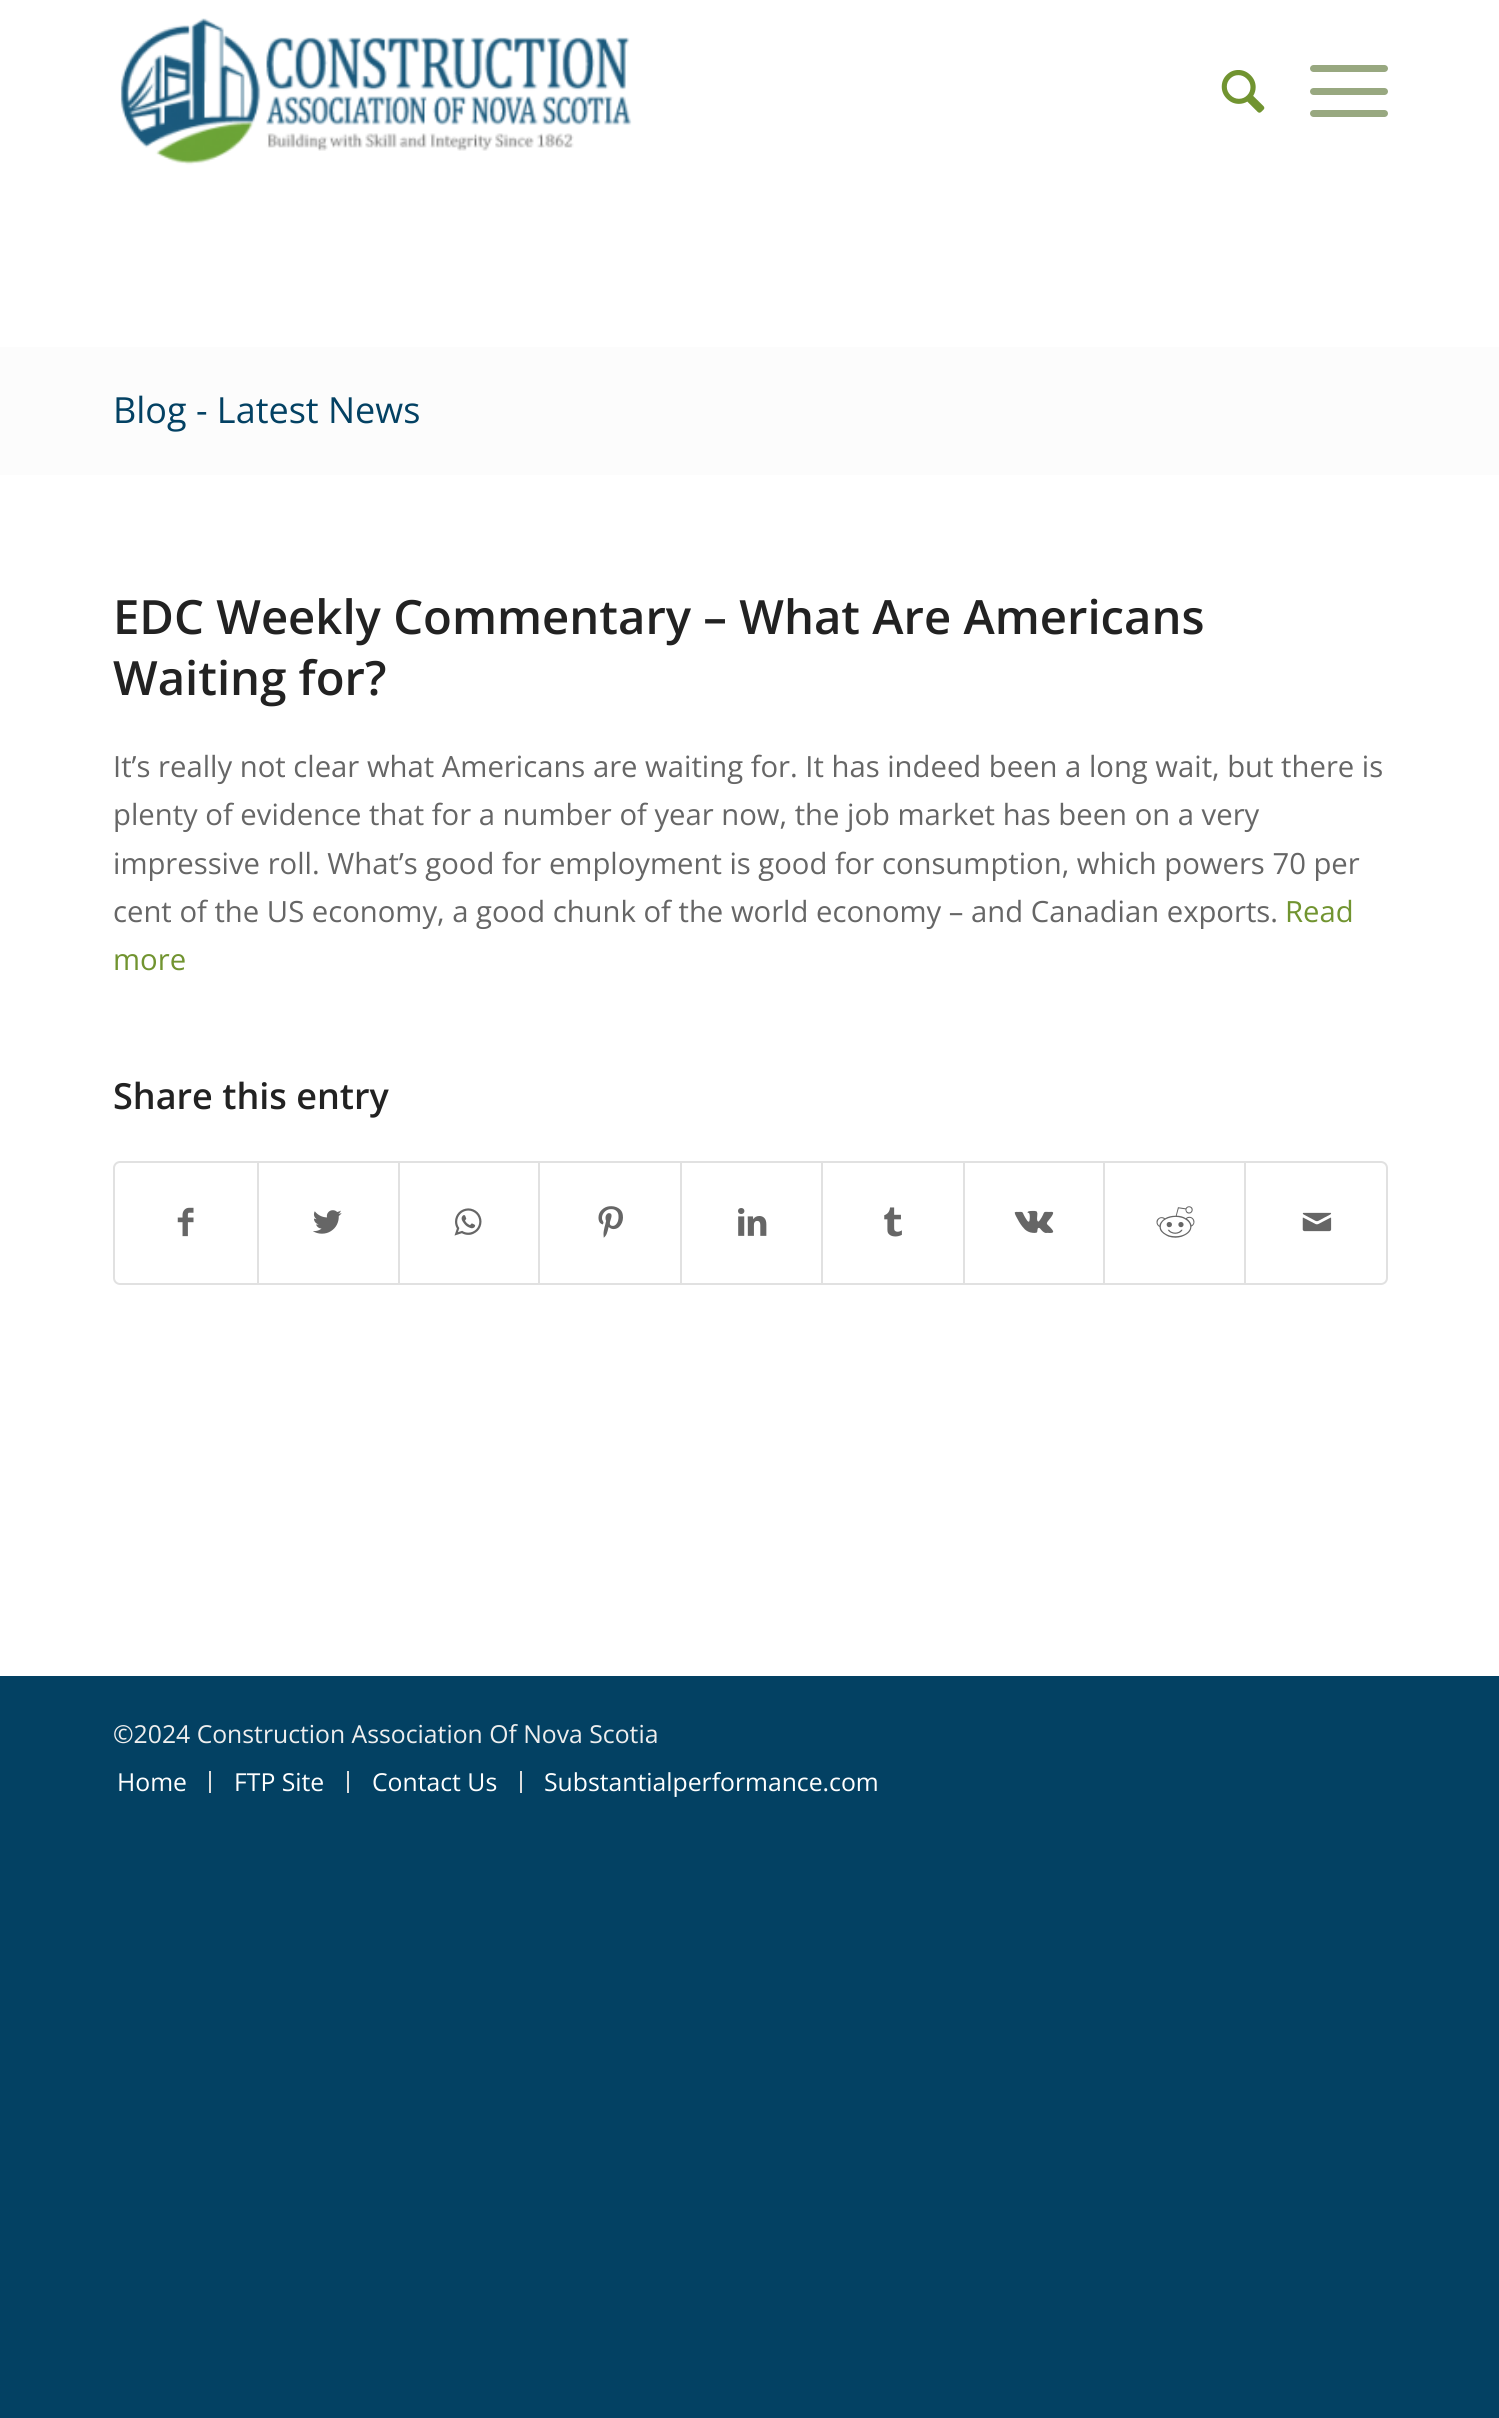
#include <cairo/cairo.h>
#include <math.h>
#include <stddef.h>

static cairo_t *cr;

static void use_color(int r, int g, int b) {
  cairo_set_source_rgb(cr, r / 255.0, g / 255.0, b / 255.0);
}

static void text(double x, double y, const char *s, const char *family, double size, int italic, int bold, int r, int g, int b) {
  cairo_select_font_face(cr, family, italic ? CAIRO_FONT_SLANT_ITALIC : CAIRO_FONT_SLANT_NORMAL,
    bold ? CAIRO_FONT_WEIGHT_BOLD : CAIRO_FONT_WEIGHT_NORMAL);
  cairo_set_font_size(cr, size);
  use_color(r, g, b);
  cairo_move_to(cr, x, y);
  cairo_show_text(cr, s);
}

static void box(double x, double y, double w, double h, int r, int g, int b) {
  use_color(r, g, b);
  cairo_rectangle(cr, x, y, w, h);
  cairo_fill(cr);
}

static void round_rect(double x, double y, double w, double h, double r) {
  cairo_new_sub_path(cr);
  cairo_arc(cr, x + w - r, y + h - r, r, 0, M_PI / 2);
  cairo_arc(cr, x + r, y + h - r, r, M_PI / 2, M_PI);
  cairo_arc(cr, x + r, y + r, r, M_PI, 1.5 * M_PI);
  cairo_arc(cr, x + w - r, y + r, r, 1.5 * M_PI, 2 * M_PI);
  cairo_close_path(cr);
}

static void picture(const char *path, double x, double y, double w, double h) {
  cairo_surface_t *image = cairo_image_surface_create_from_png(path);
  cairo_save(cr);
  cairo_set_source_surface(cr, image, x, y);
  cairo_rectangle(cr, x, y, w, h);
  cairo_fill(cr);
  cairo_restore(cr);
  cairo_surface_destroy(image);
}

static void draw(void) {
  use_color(3, 65, 99);
  cairo_paint(cr);
  box(0, 0, 1499, 1676, 255, 255, 255);
  picture("img_01.png", 120, 18, 512, 147);
  picture("img_02.png", 1221, 70, 44, 43);
  use_color(152, 168, 128);
  round_rect(1310, 88, 78, 7, 3.5);
  cairo_fill(cr);
  round_rect(1310, 65, 78, 7, 3.5);
  cairo_fill(cr);
  round_rect(1310, 110, 78, 7, 3.5);
  cairo_fill(cr);
  box(0, 347, 1499, 128, 252, 252, 252);
  round_rect(114, 1162, 1273, 122, 6);
  use_color(225, 225, 225);
  cairo_stroke(cr);
  picture("img_03.png", 177, 1207, 17, 30);
  box(257, 1163, 2, 120, 225, 225, 225);
  picture("img_04.png", 313, 1210, 29, 24);
  box(398, 1163, 2, 120, 225, 225, 225);
  picture("img_05.png", 454, 1208, 28, 28);
  box(538, 1163, 2, 120, 225, 225, 225);
  picture("img_06.png", 598, 1206, 25, 32);
  box(680, 1163, 2, 120, 225, 225, 225);
  picture("img_07.png", 738, 1208, 29, 28);
  box(821, 1163, 2, 120, 225, 225, 225);
  picture("img_08.png", 884, 1207, 18, 30);
  box(963, 1163, 2, 120, 225, 225, 225);
  picture("img_09.png", 1014, 1210, 40, 23);
  box(1103, 1163, 2, 120, 225, 225, 225);
  picture("img_10.png", 1156, 1206, 39, 32);
  box(1244, 1163, 2, 120, 225, 225, 225);
  picture("img_11.png", 1302, 1212, 30, 20);
  box(209, 1771, 2, 22, 221, 221, 221);
  box(347, 1771, 2, 22, 221, 221, 221);
  box(520, 1771, 2, 22, 221, 221, 221);
  text(113, 423, "Blog - Latest News", "Open Sans", 36, 0, 0, 3, 65, 99);
  text(113, 634, "EDC Weekly Commentary – What Are Americans", "Open Sans SemiBold", 47.25, 0, 0, 34, 34, 34);
  text(113, 695, "Waiting for?", "Open Sans SemiBold", 47.25, 0, 0, 34, 34, 34);
  text(113, 777, "It’s really not clear what Americans are waiting for. It has indeed been a long wait, but there is", "Open Sans", 29.25, 0, 0, 102, 102, 102);
  text(113, 825, "plenty of evidence that for a number of year now, the job market has been on a very", "Open Sans", 29.25, 0, 0, 102, 102, 102);
  text(113, 874, "impressive roll. What’s good for employment is good for consumption, which powers 70 per", "Open Sans", 29.25, 0, 0, 102, 102, 102);
  text(113, 922, "cent of the US economy, a good chunk of the world economy – and Canadian exports.", "Open Sans", 29.25, 0, 0, 102, 102, 102);
  text(1285, 922, "Read", "Open Sans", 29.25, 0, 0, 113, 148, 48);
  text(113, 970, "more", "Open Sans", 29.25, 0, 0, 113, 148, 48);
  text(113, 1109, "Share this entry", "Open Sans SemiBold", 36, 0, 0, 34, 34, 34);
  text(113, 1743, "©2024 Construction Association Of Nova Scotia", "Open Sans", 24.75, 0, 0, 238, 238, 238);
  text(117, 1791, "Home", "Open Sans", 24.75, 0, 0, 255, 255, 255);
  text(234, 1791, "FTP Site", "Open Sans", 24.75, 0, 0, 255, 255, 255);
  text(372, 1791, "Contact Us", "Open Sans", 24.75, 0, 0, 255, 255, 255);
  text(544, 1791, "Substantialperformance.com", "Open Sans", 24.75, 0, 0, 255, 255, 255);
}

int main(void) {
  cairo_surface_t *surface = cairo_image_surface_create(CAIRO_FORMAT_RGB24, 1499, 2418);
  cr = cairo_create(surface);
  cairo_font_options_t *options = cairo_font_options_create();
  cairo_font_options_set_hint_metrics(options, CAIRO_HINT_METRICS_OFF);
  cairo_font_options_set_hint_style(options, CAIRO_HINT_STYLE_NONE);
  cairo_set_font_options(cr, options);
  cairo_set_miter_limit(cr, 4);
  draw();
  cairo_surface_write_to_png(surface, "out.png");
  cairo_font_options_destroy(options);
  cairo_destroy(cr);
  cairo_surface_destroy(surface);
  return 0;
}
